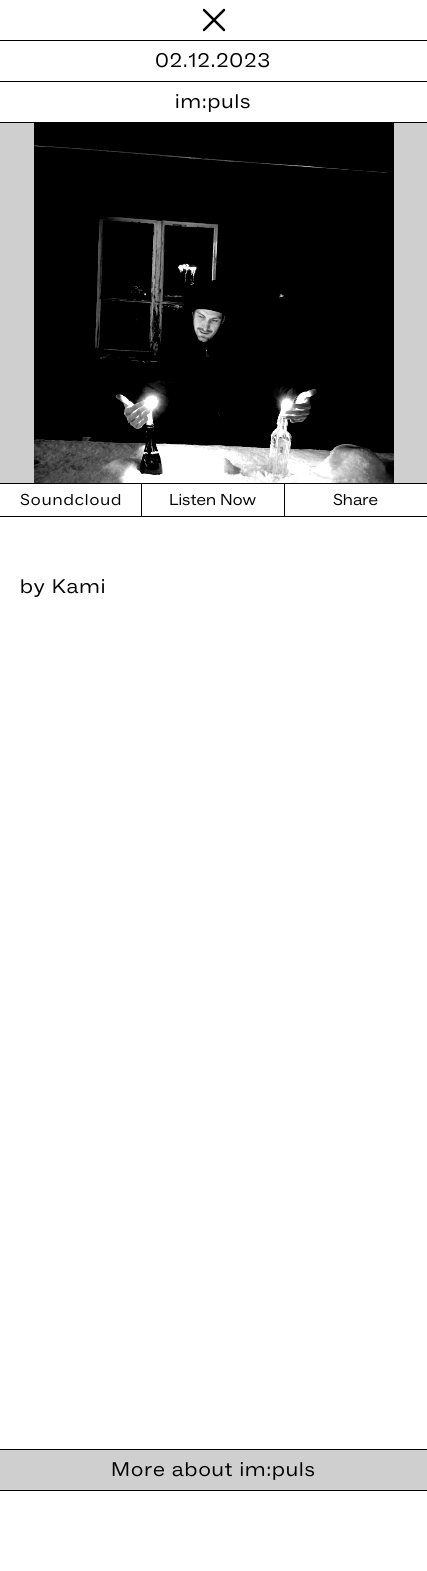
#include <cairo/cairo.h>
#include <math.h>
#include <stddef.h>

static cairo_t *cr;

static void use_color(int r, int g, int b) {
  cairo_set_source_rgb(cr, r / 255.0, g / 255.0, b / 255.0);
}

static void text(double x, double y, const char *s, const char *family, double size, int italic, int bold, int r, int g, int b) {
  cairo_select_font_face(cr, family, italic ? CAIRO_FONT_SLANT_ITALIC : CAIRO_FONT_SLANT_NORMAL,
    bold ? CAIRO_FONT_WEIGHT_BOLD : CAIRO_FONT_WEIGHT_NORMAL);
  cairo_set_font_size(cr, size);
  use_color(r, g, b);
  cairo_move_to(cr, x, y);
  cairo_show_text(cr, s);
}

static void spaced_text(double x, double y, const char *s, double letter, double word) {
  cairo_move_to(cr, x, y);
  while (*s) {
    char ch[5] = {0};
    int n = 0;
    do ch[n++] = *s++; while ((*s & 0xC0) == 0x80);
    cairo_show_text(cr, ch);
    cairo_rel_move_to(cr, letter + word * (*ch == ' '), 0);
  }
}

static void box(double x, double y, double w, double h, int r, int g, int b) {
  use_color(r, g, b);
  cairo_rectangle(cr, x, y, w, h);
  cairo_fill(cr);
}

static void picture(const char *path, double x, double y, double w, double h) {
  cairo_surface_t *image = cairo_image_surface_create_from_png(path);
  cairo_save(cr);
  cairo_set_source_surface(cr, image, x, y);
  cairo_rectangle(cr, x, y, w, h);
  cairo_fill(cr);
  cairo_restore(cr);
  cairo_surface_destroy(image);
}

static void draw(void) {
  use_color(255, 255, 255);
  cairo_paint(cr);
  cairo_new_path(cr);
  cairo_move_to(cr, 204, 30);
  cairo_line_to(cr, 224, 10);
  cairo_move_to(cr, 204, 10);
  cairo_line_to(cr, 224, 30);
  use_color(0, 0, 0);
  cairo_set_line_width(cr, 2.5);
  cairo_set_line_cap(cr, CAIRO_LINE_CAP_ROUND);
  cairo_set_line_join(cr, CAIRO_LINE_JOIN_ROUND);
  cairo_stroke(cr);
  box(0, 40, 427, 1, 0, 0, 0);
  box(0, 81, 427, 1, 0, 0, 0);
  box(0, 122, 427, 1, 0, 0, 0);
  box(0, 123, 427, 360, 207, 207, 207);
  box(0, 483, 427, 1, 0, 0, 0);
  picture("img_01.png", 34, 123, 360, 360);
  box(0, 516, 427, 1, 0, 0, 0);
  box(141, 484, 1, 32, 0, 0, 0);
  box(284, 484, 1, 32, 0, 0, 0);
  box(0, 1450, 427, 40, 207, 207, 207);
  box(0, 1449, 427, 1, 0, 0, 0);
  box(0, 1490, 427, 1, 0, 0, 0);
  cairo_select_font_face(cr, "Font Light", CAIRO_FONT_SLANT_NORMAL, CAIRO_FONT_WEIGHT_NORMAL);
  cairo_set_font_size(cr, 20);
  spaced_text(155, 67, "02.12.2023", 1, 0);
  spaced_text(175, 108, "im:puls", 1, 0);
  cairo_set_font_size(cr, 16);
  spaced_text(20, 505, "Soundcloud", 1, 0);
  text(169, 505, "Listen Now", "Font Light", 16, 0, 0, 0, 0, 0);
  text(333, 505, "Share", "Font Light", 16, 0, 0, 0, 0, 0);
  cairo_set_font_size(cr, 20);
  spaced_text(20, 593, "by Kami", 1, 0);
  spaced_text(111, 1476, "More about im:puls", 1, 0);
}

int main(void) {
  cairo_surface_t *surface = cairo_image_surface_create(CAIRO_FORMAT_RGB24, 427, 1571);
  cr = cairo_create(surface);
  cairo_font_options_t *options = cairo_font_options_create();
  cairo_font_options_set_hint_metrics(options, CAIRO_HINT_METRICS_OFF);
  cairo_font_options_set_hint_style(options, CAIRO_HINT_STYLE_NONE);
  cairo_set_font_options(cr, options);
  cairo_set_miter_limit(cr, 4);
  draw();
  cairo_surface_write_to_png(surface, "out.png");
  cairo_font_options_destroy(options);
  cairo_destroy(cr);
  cairo_surface_destroy(surface);
  return 0;
}
